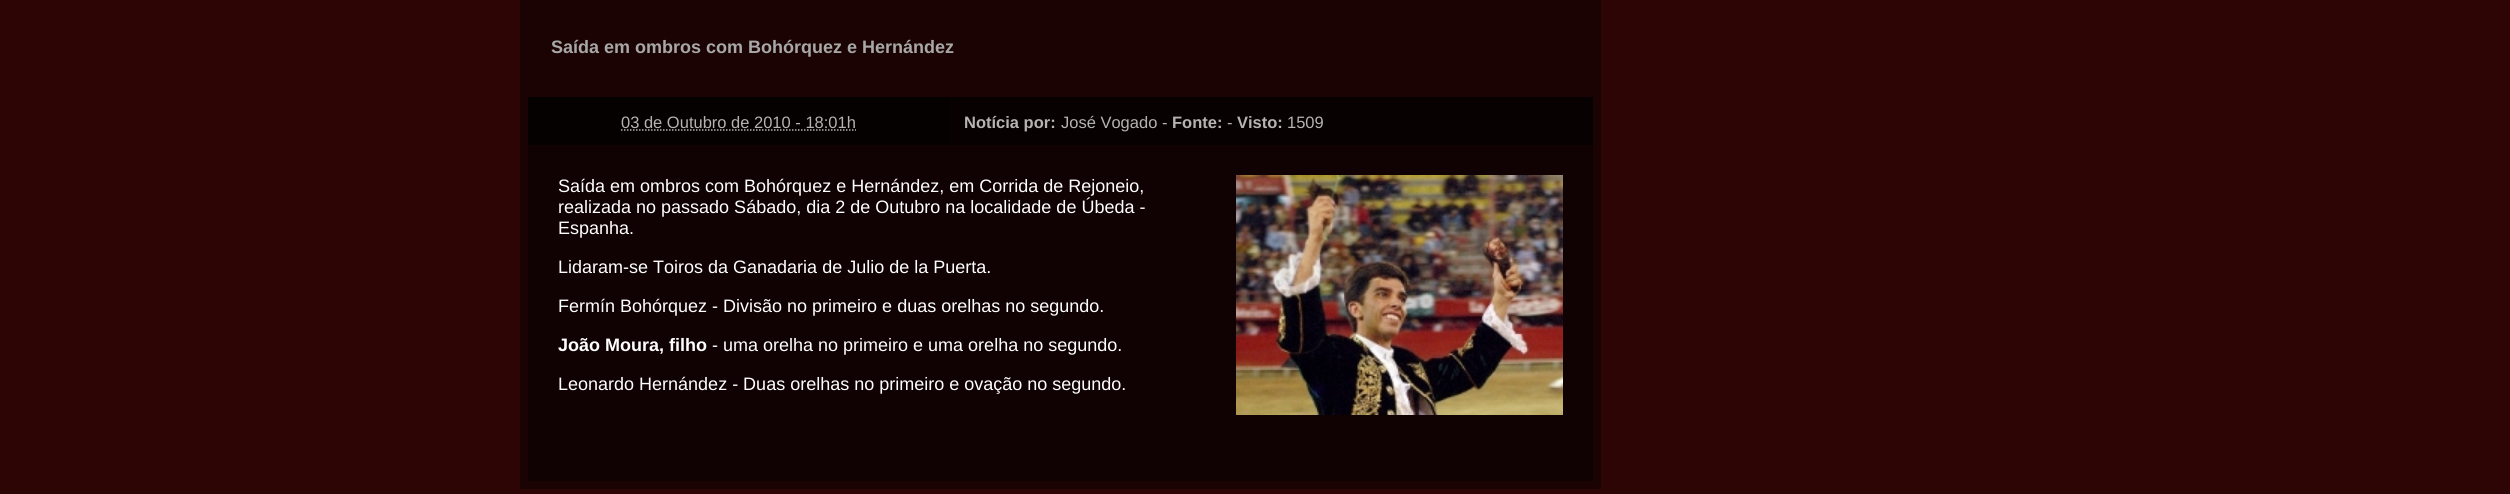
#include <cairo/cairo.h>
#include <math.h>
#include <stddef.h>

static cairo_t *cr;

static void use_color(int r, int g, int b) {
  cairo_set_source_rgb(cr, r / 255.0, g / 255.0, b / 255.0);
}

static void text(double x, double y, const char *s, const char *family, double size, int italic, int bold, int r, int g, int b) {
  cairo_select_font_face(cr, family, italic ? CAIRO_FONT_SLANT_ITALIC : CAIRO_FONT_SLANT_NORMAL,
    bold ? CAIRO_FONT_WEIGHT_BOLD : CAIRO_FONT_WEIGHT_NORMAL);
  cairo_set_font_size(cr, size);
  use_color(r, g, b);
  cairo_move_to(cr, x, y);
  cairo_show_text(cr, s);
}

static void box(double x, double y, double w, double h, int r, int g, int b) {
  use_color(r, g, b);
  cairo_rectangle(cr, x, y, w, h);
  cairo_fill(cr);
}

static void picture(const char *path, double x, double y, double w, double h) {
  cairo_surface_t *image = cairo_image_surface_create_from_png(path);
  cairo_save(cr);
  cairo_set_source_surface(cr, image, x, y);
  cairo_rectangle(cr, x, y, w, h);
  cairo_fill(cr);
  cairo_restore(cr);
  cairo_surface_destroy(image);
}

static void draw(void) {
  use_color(45, 5, 5);
  cairo_paint(cr);
  box(520, 0, 1081, 489, 27, 3, 3);
  box(528, 97, 422, 48, 5, 1, 1);
  cairo_new_path(cr);
  cairo_move_to(cr, 621, 130);
  cairo_line_to(cr, 856, 130);
  use_color(181, 180, 178);
  cairo_set_line_width(cr, 1.5);
  cairo_set_dash(cr, (double[]){1.5, 1.5}, 2, 0);
  cairo_stroke(cr);
  box(950, 97, 643, 48, 8, 1, 1);
  box(528, 145, 1065, 336, 16, 2, 2);
  picture("img_01.png", 1236, 175, 327, 240);
  text(551, 53, "Saída em ombros com Bohórquez e Hernández", "Liberation Sans", 18, 0, 1, 168, 168, 168);
  text(621, 128, "03 de Outubro de 2010 - 18:01h", "Liberation Sans", 16.5, 0, 0, 181, 180, 178);
  text(964, 128, "Notícia por:", "Liberation Sans", 16.5, 0, 1, 181, 180, 178);
  text(1061, 128, "José Vogado -", "Liberation Sans", 16.5, 0, 0, 181, 180, 178);
  text(1172, 128, "Fonte:", "Liberation Sans", 16.5, 0, 1, 181, 180, 178);
  text(1227, 128, "-", "Liberation Sans", 16.5, 0, 0, 181, 180, 178);
  text(1237, 128, "Visto:", "Liberation Sans", 16.5, 0, 1, 181, 180, 178);
  text(1287, 128, "1509", "Liberation Sans", 16.5, 0, 0, 181, 180, 178);
  text(558, 192, "Saída em ombros com Bohórquez e Hernández, em Corrida de Rejoneio,", "Liberation Sans", 18, 0, 0, 255, 255, 255);
  text(558, 213, "realizada no passado Sábado, dia 2 de Outubro na localidade de Úbeda -", "Liberation Sans", 18, 0, 0, 255, 255, 255);
  text(558, 234, "Espanha.", "Liberation Sans", 18, 0, 0, 255, 255, 255);
  text(558, 273, "Lidaram-se Toiros da Ganadaria de Julio de la Puerta.", "Liberation Sans", 18, 0, 0, 255, 255, 255);
  text(558, 312, "Fermín Bohórquez - Divisão no primeiro e duas orelhas no segundo.", "Liberation Sans", 18, 0, 0, 255, 255, 255);
  text(558, 351, "João Moura, filho", "Liberation Sans", 18, 0, 1, 255, 255, 255);
  text(712, 351, "- uma orelha no primeiro e uma orelha no segundo.", "Liberation Sans", 18, 0, 0, 255, 255, 255);
  text(558, 390, "Leonardo Hernández - Duas orelhas no primeiro e ovação no segundo.", "Liberation Sans", 18, 0, 0, 255, 255, 255);
}

int main(void) {
  cairo_surface_t *surface = cairo_image_surface_create(CAIRO_FORMAT_RGB24, 2510, 494);
  cr = cairo_create(surface);
  cairo_font_options_t *options = cairo_font_options_create();
  cairo_font_options_set_hint_metrics(options, CAIRO_HINT_METRICS_OFF);
  cairo_font_options_set_hint_style(options, CAIRO_HINT_STYLE_NONE);
  cairo_set_font_options(cr, options);
  cairo_set_miter_limit(cr, 4);
  draw();
  cairo_surface_write_to_png(surface, "out.png");
  cairo_font_options_destroy(options);
  cairo_destroy(cr);
  cairo_surface_destroy(surface);
  return 0;
}
